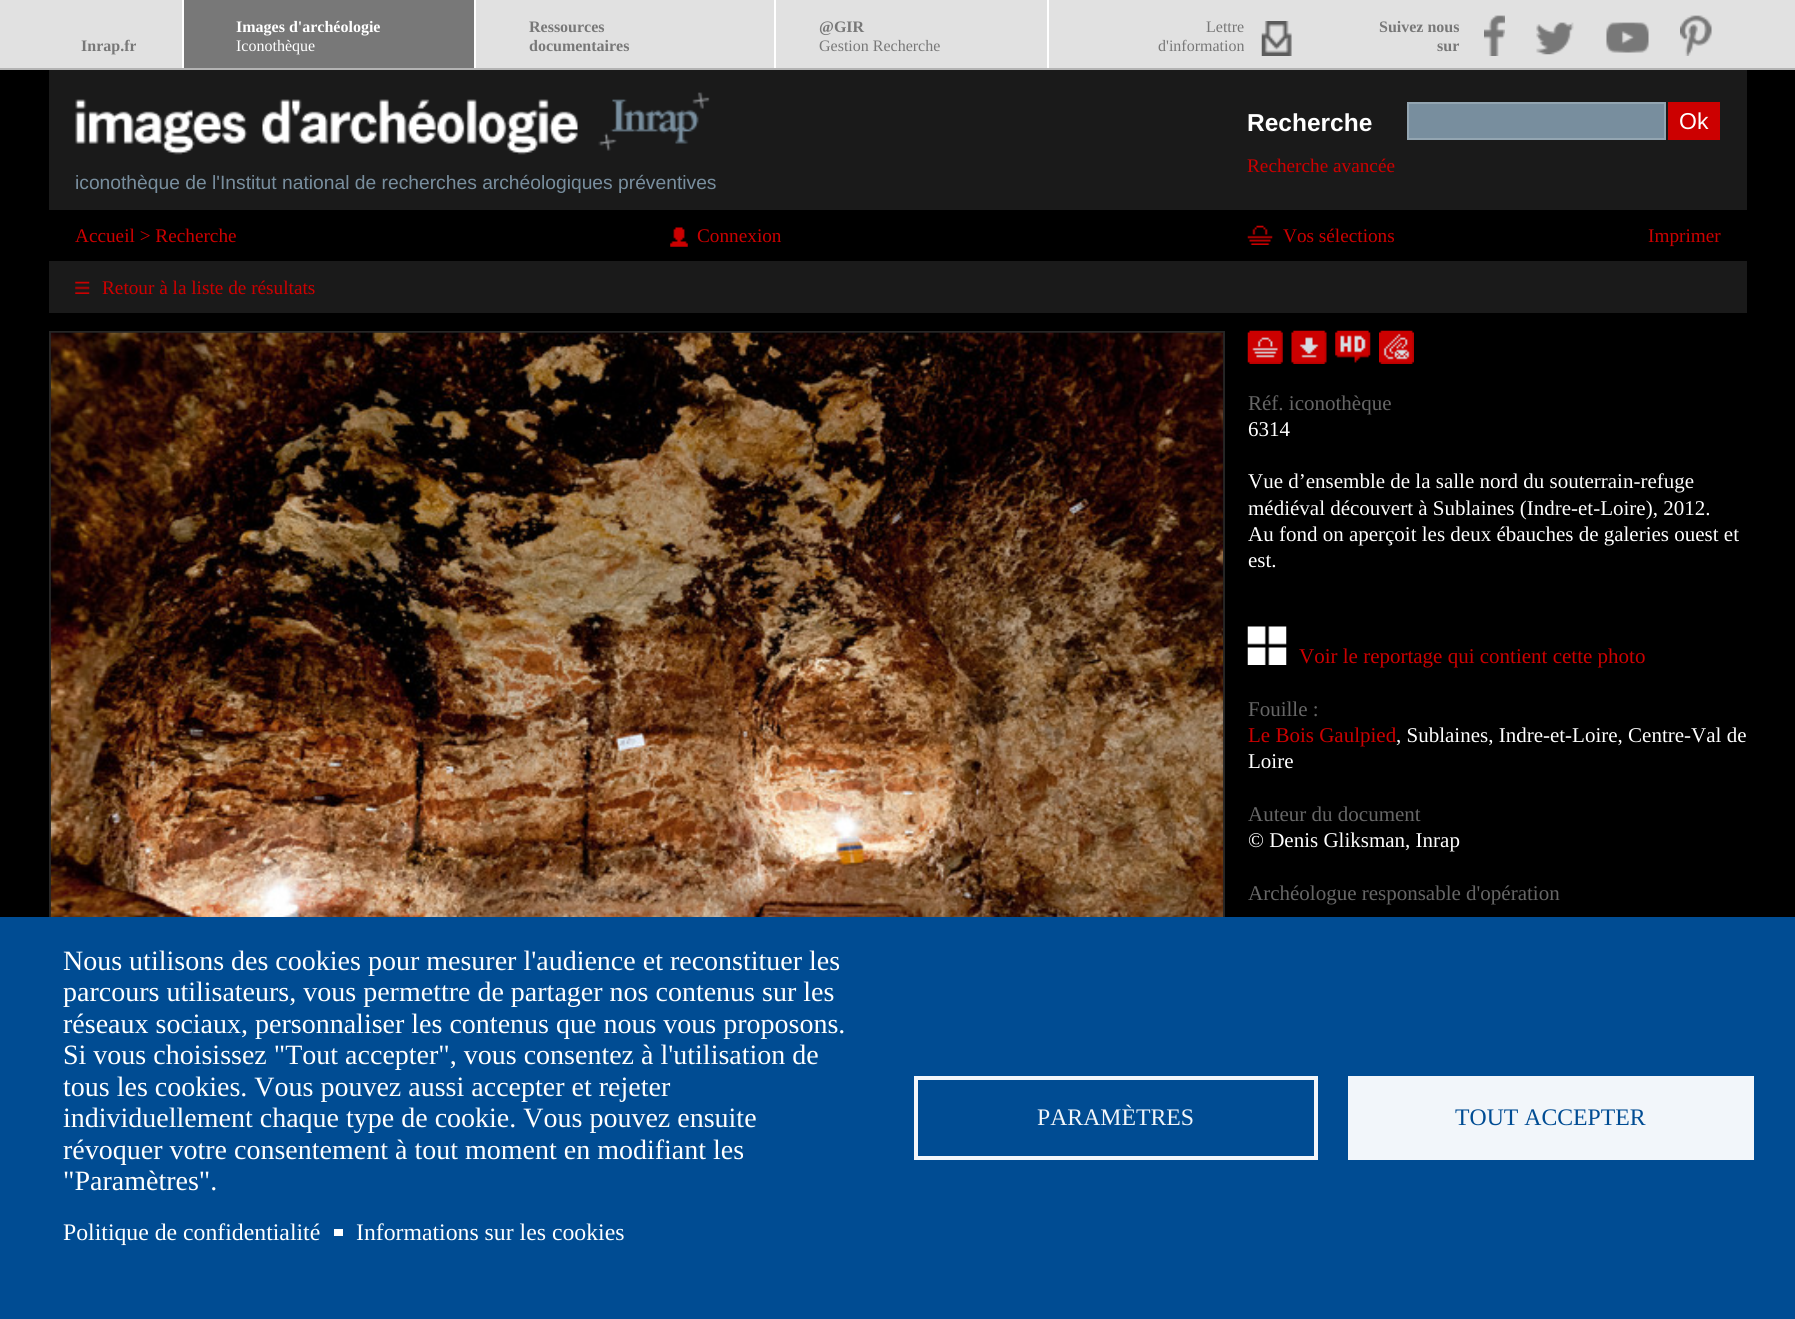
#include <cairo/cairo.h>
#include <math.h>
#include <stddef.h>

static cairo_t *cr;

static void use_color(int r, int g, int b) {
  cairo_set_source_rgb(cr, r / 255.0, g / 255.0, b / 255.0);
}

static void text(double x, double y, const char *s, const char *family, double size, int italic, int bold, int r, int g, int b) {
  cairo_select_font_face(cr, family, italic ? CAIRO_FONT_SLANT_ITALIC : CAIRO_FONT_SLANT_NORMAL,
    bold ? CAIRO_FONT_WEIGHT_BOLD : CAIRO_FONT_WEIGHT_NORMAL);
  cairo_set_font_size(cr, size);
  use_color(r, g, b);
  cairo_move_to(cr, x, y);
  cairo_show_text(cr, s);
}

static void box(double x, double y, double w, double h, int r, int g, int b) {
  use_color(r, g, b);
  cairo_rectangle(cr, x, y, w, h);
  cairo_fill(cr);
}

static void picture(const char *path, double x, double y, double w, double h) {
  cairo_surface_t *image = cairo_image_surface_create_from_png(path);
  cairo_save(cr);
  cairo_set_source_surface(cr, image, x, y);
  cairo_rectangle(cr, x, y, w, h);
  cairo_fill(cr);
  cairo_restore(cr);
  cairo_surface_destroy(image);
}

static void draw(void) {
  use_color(0, 0, 0);
  cairo_paint(cr);
  box(0, 0, 1795, 68, 225, 225, 225);
  box(0, 68, 1795, 2, 179, 179, 179);
  box(182, 0, 2, 68, 255, 255, 255);
  box(184, 0, 290, 68, 120, 120, 120);
  box(474, 0, 2, 68, 255, 255, 255);
  box(774, 0, 2, 68, 255, 255, 255);
  box(1047, 0, 2, 68, 255, 255, 255);
  picture("img_01.png", 1261, 21, 31, 35);
  picture("img_02.png", 1484, 15, 21, 41);
  picture("img_03.png", 1536, 22, 38, 33);
  picture("img_04.png", 1606, 22, 43, 31);
  picture("img_05.png", 1680, 15, 32, 41);
  box(49, 70, 1698, 140, 26, 26, 26);
  use_color(120, 142, 158);
  cairo_rectangle(cr, 1408, 103, 257, 36);
  cairo_fill_preserve(cr);
  use_color(147, 165, 177);
  cairo_stroke(cr);
  box(1668, 102, 52, 38, 204, 0, 0);
  picture("img_06.png", 75, 92, 635, 63);
  picture("img_07.png", 670, 227, 18, 20);
  picture("img_08.png", 1247, 225, 26, 20);
  box(49, 261, 1698, 52, 26, 26, 26);
  picture("img_09.png", 75, 281, 15, 13);
  cairo_rectangle(cr, 50, 332, 1174, 782);
  use_color(38, 38, 38);
  cairo_stroke(cr);
  picture("img_10.png", 50, 332, 1174, 585);
  picture("img_11.png", 1247, 330, 36, 34);
  picture("img_12.png", 1291, 330, 36, 34);
  picture("img_13.png", 1335, 330, 36, 33);
  picture("img_14.png", 1379, 330, 35, 34);
  picture("img_15.png", 1247, 626, 40, 39);
  box(0, 917, 1795, 402, 0, 76, 147);
  box(334, 1229, 9, 7, 255, 255, 255);
  cairo_rectangle(cr, 916, 1078, 400, 80);
  use_color(242, 246, 250);
  cairo_set_line_width(cr, 4);
  cairo_stroke(cr);
  box(1348, 1076, 406, 84, 242, 246, 250);
  text(81, 51, "Inrap.fr", "Liberation Serif", 16, 0, 1, 120, 120, 120);
  text(236, 32, "Images d'archéologie", "Liberation Serif", 16, 0, 1, 255, 255, 255);
  text(236, 51, "Iconothèque", "Liberation Serif", 16, 0, 0, 255, 255, 255);
  text(529, 32, "Ressources", "Liberation Serif", 16, 0, 1, 120, 120, 120);
  text(529, 51, "documentaires", "Liberation Serif", 16, 0, 1, 120, 120, 120);
  text(819, 32, "@GIR", "Liberation Serif", 16, 0, 1, 120, 120, 120);
  text(819, 51, "Gestion Recherche", "Liberation Serif", 16, 0, 0, 120, 120, 120);
  text(1206, 32, "Lettre", "Liberation Serif", 16, 0, 0, 120, 120, 120);
  text(1158, 51, "d'information", "Liberation Serif", 16, 0, 0, 120, 120, 120);
  text(1379, 32, "Suivez nous", "Liberation Serif", 16, 0, 1, 120, 120, 120);
  text(1437, 51, "sur", "Liberation Serif", 16, 0, 1, 120, 120, 120);
  text(1247, 131, "Recherche", "Liberation Sans", 24.5, 0, 1, 255, 255, 255);
  text(1679, 129, "Ok", "Liberation Sans", 23, 0, 0, 255, 255, 255);
  text(1247, 172, "Recherche avancée", "Liberation Serif", 19.25, 0, 0, 204, 0, 0);
  text(75, 189, "iconothèque de l'Institut national de recherches archéologiques préventives", "Liberation Sans", 19.25, 0, 0, 120, 142, 158);
  text(75, 242, "Accueil > Recherche", "Liberation Serif", 19.25, 0, 0, 204, 0, 0);
  text(697, 242, "Connexion", "Liberation Serif", 19.25, 0, 0, 204, 0, 0);
  text(1283, 242, "Vos sélections", "Liberation Serif", 19.25, 0, 0, 204, 0, 0);
  text(1648, 242, "Imprimer", "Liberation Serif", 19.25, 0, 0, 204, 0, 0);
  text(102, 294, "Retour à la liste de résultats", "Liberation Serif", 19.25, 0, 0, 204, 0, 0);
  text(1248, 410, "Réf. iconothèque", "Liberation Serif", 21, 0, 0, 102, 102, 102);
  text(1248, 436, "6314", "Liberation Serif", 21, 0, 0, 255, 255, 255);
  text(1248, 488, "Vue d’ensemble de la salle nord du souterrain-refuge", "Liberation Serif", 21, 0, 0, 255, 255, 255);
  text(1248, 515, "médiéval découvert à Sublaines (Indre-et-Loire), 2012.", "Liberation Serif", 21, 0, 0, 255, 255, 255);
  text(1248, 541, "Au fond on aperçoit les deux ébauches de galeries ouest et", "Liberation Serif", 21, 0, 0, 255, 255, 255);
  text(1248, 567, "est.", "Liberation Serif", 21, 0, 0, 255, 255, 255);
  text(1299, 663, "Voir le reportage qui contient cette photo", "Liberation Serif", 21, 0, 0, 204, 0, 0);
  text(1248, 716, "Fouille :", "Liberation Serif", 21, 0, 0, 102, 102, 102);
  text(1248, 742, "Le Bois Gaulpied", "Liberation Serif", 21, 0, 0, 204, 0, 0);
  text(1396, 742, ", Sublaines, Indre-et-Loire, Centre-Val de", "Liberation Serif", 21, 0, 0, 255, 255, 255);
  text(1248, 768, "Loire", "Liberation Serif", 21, 0, 0, 255, 255, 255);
  text(1248, 821, "Auteur du document", "Liberation Serif", 21, 0, 0, 102, 102, 102);
  text(1248, 847, "© Denis Gliksman, Inrap", "Liberation Serif", 21, 0, 0, 255, 255, 255);
  text(1248, 900, "Archéologue responsable d'opération", "Liberation Serif", 21, 0, 0, 102, 102, 102);
  text(63, 970, "Nous utilisons des cookies pour mesurer l'audience et reconstituer les", "Liberation Serif", 28, 0, 0, 255, 255, 255);
  text(63, 1001, "parcours utilisateurs, vous permettre de partager nos contenus sur les", "Liberation Serif", 28, 0, 0, 255, 255, 255);
  text(63, 1033, "réseaux sociaux, personnaliser les contenus que nous vous proposons.", "Liberation Serif", 28, 0, 0, 255, 255, 255);
  text(63, 1064, "Si vous choisissez \"Tout accepter\", vous consentez à l'utilisation de", "Liberation Serif", 28, 0, 0, 255, 255, 255);
  text(63, 1096, "tous les cookies. Vous pouvez aussi accepter et rejeter", "Liberation Serif", 28, 0, 0, 255, 255, 255);
  text(63, 1127, "individuellement chaque type de cookie. Vous pouvez ensuite", "Liberation Serif", 28, 0, 0, 255, 255, 255);
  text(63, 1159, "révoquer votre consentement à tout moment en modifiant les", "Liberation Serif", 28, 0, 0, 255, 255, 255);
  text(63, 1190, "\"Paramètres\".", "Liberation Serif", 28, 0, 0, 255, 255, 255);
  text(63, 1240, "Politique de confidentialité", "Liberation Serif", 23.75, 0, 0, 255, 255, 255);
  text(356, 1240, "Informations sur les cookies", "Liberation Serif", 23.75, 0, 0, 255, 255, 255);
  text(1037, 1125, "PARAMÈTRES", "Liberation Serif", 23.75, 0, 0, 242, 246, 250);
  text(1455, 1125, "TOUT ACCEPTER", "Liberation Serif", 23.75, 0, 0, 0, 76, 147);
}

int main(void) {
  cairo_surface_t *surface = cairo_image_surface_create(CAIRO_FORMAT_RGB24, 1795, 1319);
  cr = cairo_create(surface);
  cairo_font_options_t *options = cairo_font_options_create();
  cairo_font_options_set_hint_metrics(options, CAIRO_HINT_METRICS_OFF);
  cairo_font_options_set_hint_style(options, CAIRO_HINT_STYLE_NONE);
  cairo_set_font_options(cr, options);
  cairo_set_miter_limit(cr, 4);
  draw();
  cairo_surface_write_to_png(surface, "out.png");
  cairo_font_options_destroy(options);
  cairo_destroy(cr);
  cairo_surface_destroy(surface);
  return 0;
}
